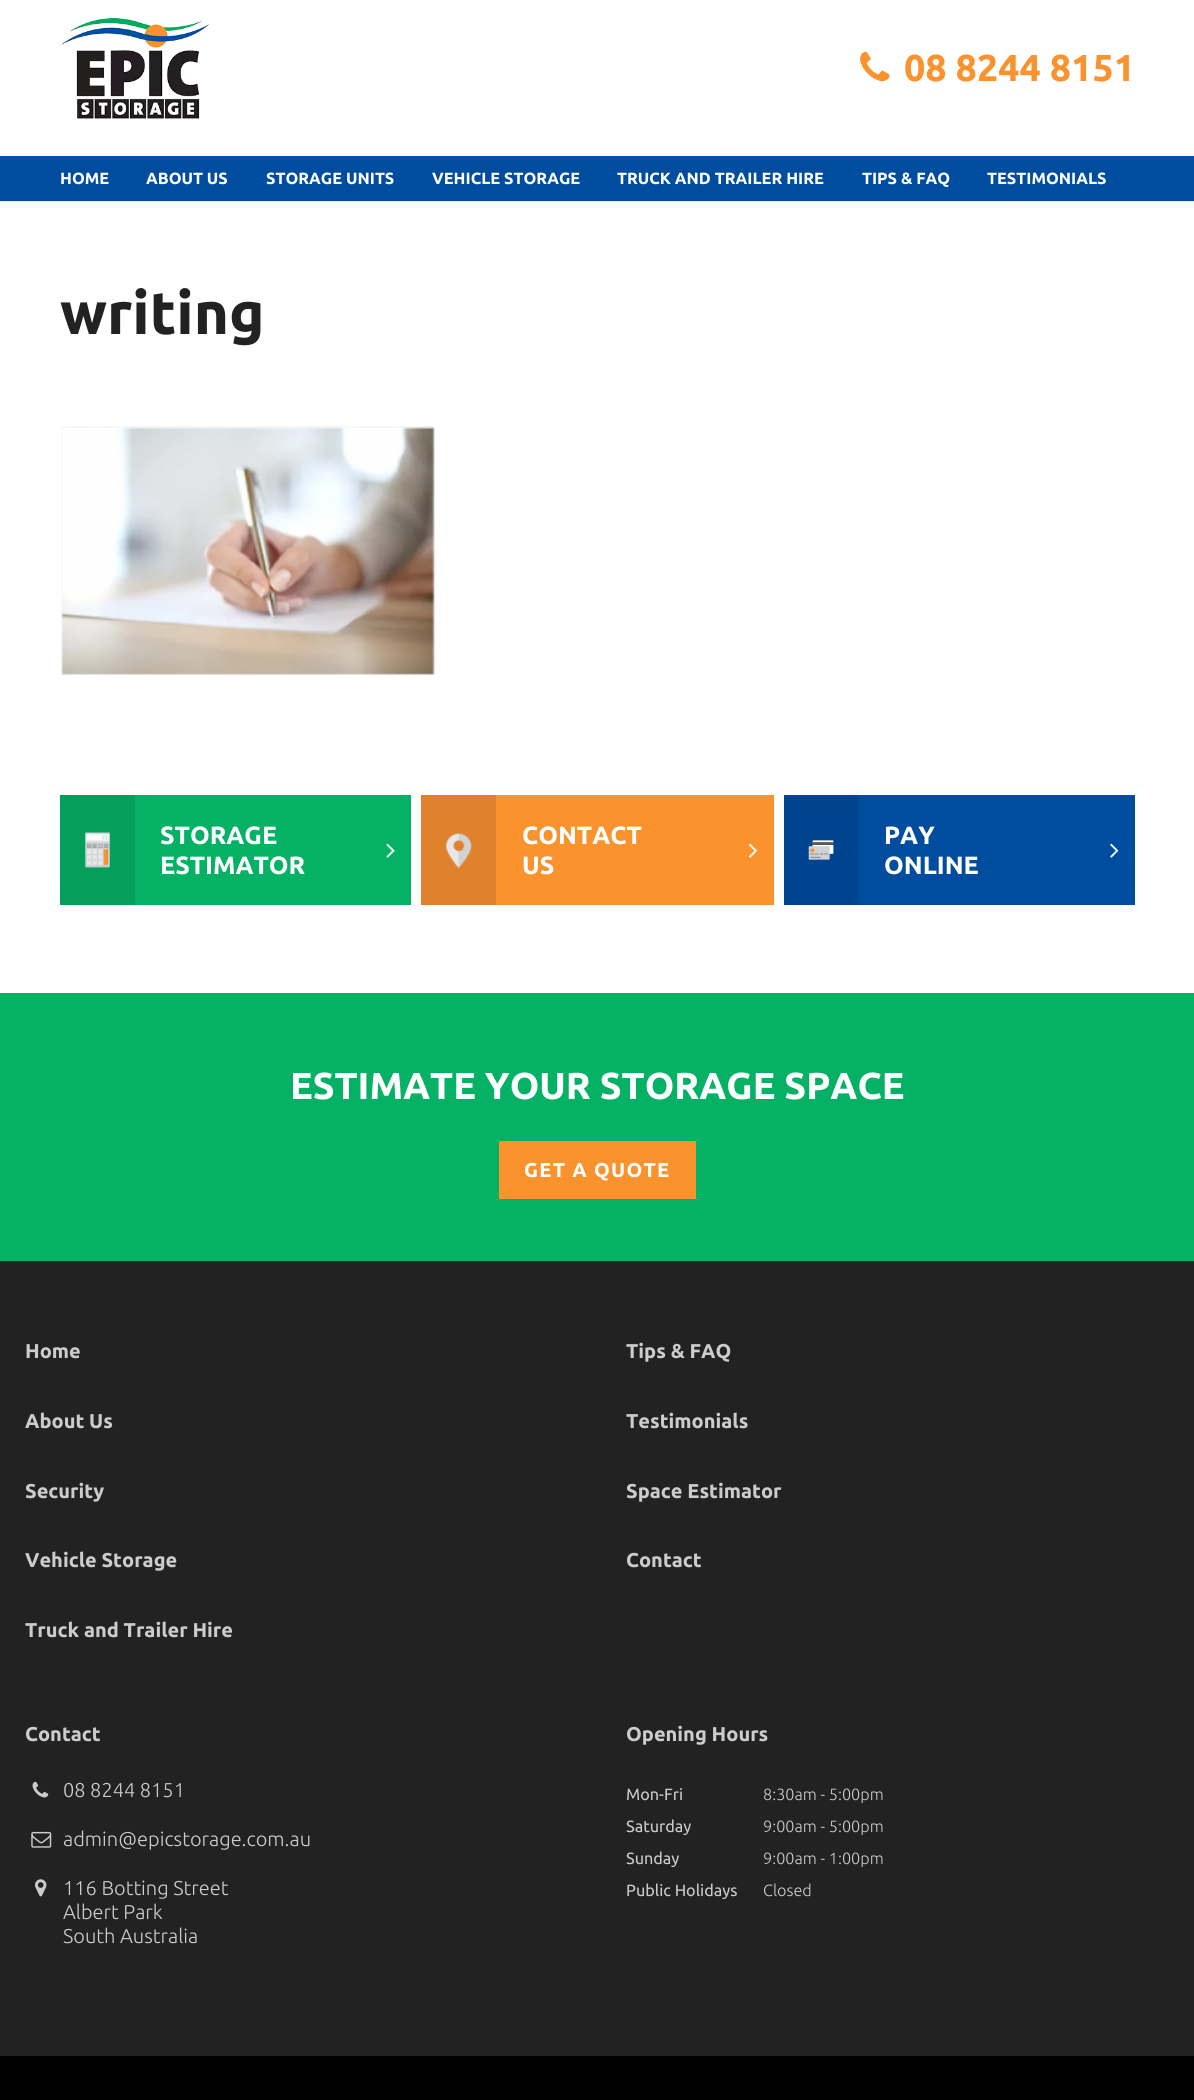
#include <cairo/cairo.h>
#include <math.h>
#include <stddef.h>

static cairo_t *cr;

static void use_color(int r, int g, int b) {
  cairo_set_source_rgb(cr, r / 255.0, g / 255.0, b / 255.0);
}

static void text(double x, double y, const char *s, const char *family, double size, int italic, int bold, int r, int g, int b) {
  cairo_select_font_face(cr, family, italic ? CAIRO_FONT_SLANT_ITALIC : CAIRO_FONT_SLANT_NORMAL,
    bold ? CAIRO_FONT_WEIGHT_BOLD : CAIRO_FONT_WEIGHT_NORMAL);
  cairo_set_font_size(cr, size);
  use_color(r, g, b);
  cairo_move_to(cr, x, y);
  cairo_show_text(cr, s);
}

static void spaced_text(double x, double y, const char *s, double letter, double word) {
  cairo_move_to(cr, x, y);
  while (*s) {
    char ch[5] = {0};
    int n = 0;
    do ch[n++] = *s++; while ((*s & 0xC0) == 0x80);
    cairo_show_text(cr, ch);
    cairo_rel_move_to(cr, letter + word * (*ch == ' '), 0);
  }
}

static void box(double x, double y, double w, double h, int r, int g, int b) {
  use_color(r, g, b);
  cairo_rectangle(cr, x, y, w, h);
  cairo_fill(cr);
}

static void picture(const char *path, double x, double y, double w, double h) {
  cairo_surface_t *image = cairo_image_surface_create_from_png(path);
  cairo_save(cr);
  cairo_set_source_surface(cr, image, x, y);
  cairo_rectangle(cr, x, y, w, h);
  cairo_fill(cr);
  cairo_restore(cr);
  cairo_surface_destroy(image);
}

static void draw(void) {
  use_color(255, 255, 255);
  cairo_paint(cr);
  box(0, 201, 1194, 1, 238, 238, 238);
  picture("img_01.png", 61, 17, 148, 102);
  picture("img_02.png", 860, 51, 30, 31);
  box(0, 156, 1194, 45, 0, 76, 159);
  picture("img_03.png", 61, 426, 374, 249);
  box(135, 795, 276, 110, 5, 177, 101);
  box(60, 795, 75, 110, 4, 159, 91);
  picture("img_04.png", 85, 832, 25, 36);
  picture("img_05.png", 386, 843, 9, 15);
  box(496, 795, 278, 110, 250, 146, 46);
  box(421, 795, 75, 110, 223, 130, 43);
  picture("img_06.png", 446, 833, 26, 35);
  picture("img_07.png", 749, 843, 8, 15);
  box(859, 795, 276, 110, 0, 76, 159);
  box(784, 795, 75, 110, 0, 68, 143);
  picture("img_08.png", 808, 840, 26, 20);
  picture("img_09.png", 1110, 843, 9, 15);
  box(0, 993, 1194, 268, 5, 177, 101);
  box(499, 1141, 197, 58, 250, 146, 46);
  box(0, 1261, 1194, 795, 34, 34, 34);
  picture("img_10.png", 32, 1781, 17, 17);
  picture("img_11.png", 31, 1831, 21, 17);
  picture("img_12.png", 35, 1879, 12, 18);
  box(0, 2056, 1194, 44, 0, 0, 0);
  text(904, 81, "08 8244 8151", "Ubuntu", 37.5, 0, 1, 250, 146, 46);
  text(60, 184, "HOME", "Ubuntu", 16.25, 0, 1, 255, 255, 255);
  text(146, 184, "ABOUT US", "Ubuntu", 16.25, 0, 1, 255, 255, 255);
  text(266, 184, "STORAGE UNITS", "Ubuntu", 16.25, 0, 1, 255, 255, 255);
  text(432, 184, "VEHICLE STORAGE", "Ubuntu", 16.25, 0, 1, 255, 255, 255);
  text(617, 184, "TRUCK AND TRAILER HIRE", "Ubuntu", 16.25, 0, 1, 255, 255, 255);
  text(862, 184, "TIPS & FAQ", "Ubuntu", 16.25, 0, 1, 255, 255, 255);
  text(987, 184, "TESTIMONIALS", "Ubuntu", 16.25, 0, 1, 255, 255, 255);
  text(60, 334, "writing", "Ubuntu", 60, 0, 1, 34, 34, 34);
  text(160, 844, "STORAGE", "Ubuntu", 25, 0, 1, 255, 255, 255);
  text(160, 874, "ESTIMATOR", "Ubuntu", 25, 0, 1, 255, 255, 255);
  text(522, 844, "CONTACT", "Ubuntu", 25, 0, 1, 255, 255, 255);
  text(522, 874, "US", "Ubuntu", 25, 0, 1, 255, 255, 255);
  text(884, 844, "PAY", "Ubuntu", 25, 0, 1, 255, 255, 255);
  text(884, 874, "ONLINE", "Ubuntu", 25, 0, 1, 255, 255, 255);
  text(290, 1099, "ESTIMATE YOUR STORAGE SPACE", "Ubuntu", 37.5, 0, 1, 255, 255, 255);
  cairo_set_font_size(cr, 20);
  spaced_text(524, 1177, "GET A QUOTE", 1.25, 0);
  text(25, 1358, "Home", "Ubuntu", 20, 0, 1, 204, 204, 204);
  text(25, 1428, "About Us", "Ubuntu", 20, 0, 1, 204, 204, 204);
  text(25, 1498, "Security", "Ubuntu", 20, 0, 1, 204, 204, 204);
  text(25, 1567, "Vehicle Storage", "Ubuntu", 20, 0, 1, 204, 204, 204);
  text(25, 1637, "Truck and Trailer Hire", "Ubuntu", 20, 0, 1, 204, 204, 204);
  text(626, 1358, "Tips & FAQ", "Ubuntu", 20, 0, 1, 204, 204, 204);
  text(626, 1428, "Testimonials", "Ubuntu", 20, 0, 1, 204, 204, 204);
  text(626, 1498, "Space Estimator", "Ubuntu", 20, 0, 1, 204, 204, 204);
  text(626, 1567, "Contact", "Ubuntu", 20, 0, 1, 204, 204, 204);
  text(25, 1741, "Contact", "Ubuntu", 20, 0, 1, 204, 204, 204);
  text(63, 1797, "08 8244 8151", "Ubuntu Light", 20, 0, 0, 204, 204, 204);
  text(63, 1846, "admin@epicstorage.com.au", "Ubuntu Light", 20, 0, 0, 204, 204, 204);
  text(63, 1895, "116 Botting Street", "Ubuntu Light", 20, 0, 0, 204, 204, 204);
  text(63, 1919, "Albert Park", "Ubuntu Light", 20, 0, 0, 204, 204, 204);
  text(63, 1943, "South Australia", "Ubuntu Light", 20, 0, 0, 204, 204, 204);
  text(626, 1741, "Opening Hours", "Ubuntu", 20, 0, 1, 204, 204, 204);
  text(626, 1800, "Mon-Fri", "Ubuntu", 16.25, 0, 0, 204, 204, 204);
  text(763, 1800, "8:30am - 5:00pm", "Ubuntu Light", 16.25, 0, 0, 204, 204, 204);
  text(626, 1832, "Saturday", "Ubuntu", 16.25, 0, 0, 204, 204, 204);
  text(763, 1832, "9:00am - 5:00pm", "Ubuntu Light", 16.25, 0, 0, 204, 204, 204);
  text(626, 1864, "Sunday", "Ubuntu", 16.25, 0, 0, 204, 204, 204);
  text(763, 1864, "9:00am - 1:00pm", "Ubuntu Light", 16.25, 0, 0, 204, 204, 204);
  text(626, 1896, "Public Holidays", "Ubuntu", 16.25, 0, 0, 204, 204, 204);
  text(763, 1896, "Closed", "Ubuntu Light", 16.25, 0, 0, 204, 204, 204);
}

int main(void) {
  cairo_surface_t *surface = cairo_image_surface_create(CAIRO_FORMAT_RGB24, 1194, 2100);
  cr = cairo_create(surface);
  cairo_font_options_t *options = cairo_font_options_create();
  cairo_font_options_set_hint_metrics(options, CAIRO_HINT_METRICS_OFF);
  cairo_font_options_set_hint_style(options, CAIRO_HINT_STYLE_NONE);
  cairo_set_font_options(cr, options);
  cairo_set_miter_limit(cr, 4);
  draw();
  cairo_surface_write_to_png(surface, "out.png");
  cairo_font_options_destroy(options);
  cairo_destroy(cr);
  cairo_surface_destroy(surface);
  return 0;
}
